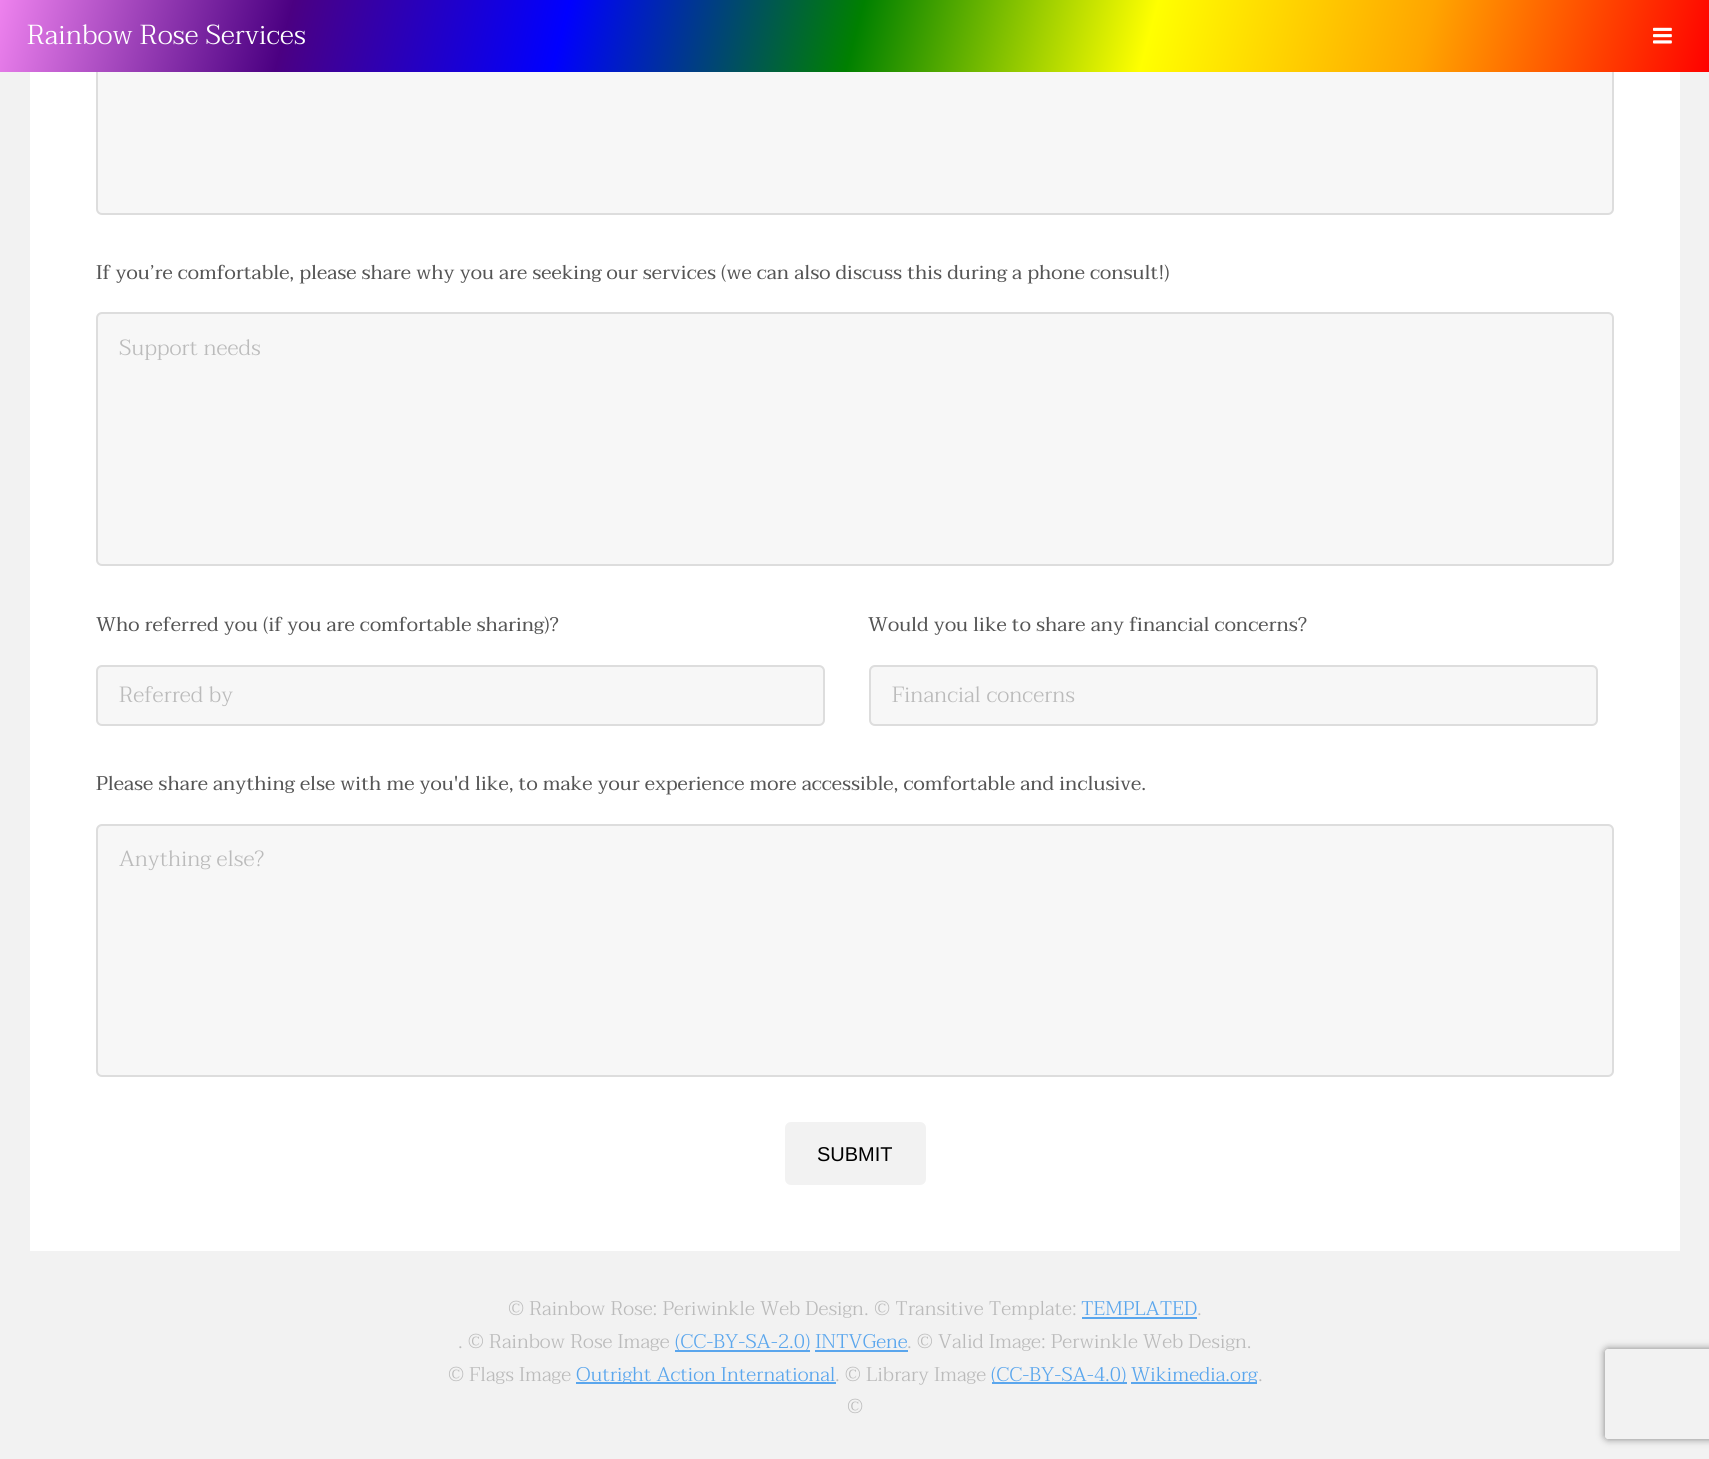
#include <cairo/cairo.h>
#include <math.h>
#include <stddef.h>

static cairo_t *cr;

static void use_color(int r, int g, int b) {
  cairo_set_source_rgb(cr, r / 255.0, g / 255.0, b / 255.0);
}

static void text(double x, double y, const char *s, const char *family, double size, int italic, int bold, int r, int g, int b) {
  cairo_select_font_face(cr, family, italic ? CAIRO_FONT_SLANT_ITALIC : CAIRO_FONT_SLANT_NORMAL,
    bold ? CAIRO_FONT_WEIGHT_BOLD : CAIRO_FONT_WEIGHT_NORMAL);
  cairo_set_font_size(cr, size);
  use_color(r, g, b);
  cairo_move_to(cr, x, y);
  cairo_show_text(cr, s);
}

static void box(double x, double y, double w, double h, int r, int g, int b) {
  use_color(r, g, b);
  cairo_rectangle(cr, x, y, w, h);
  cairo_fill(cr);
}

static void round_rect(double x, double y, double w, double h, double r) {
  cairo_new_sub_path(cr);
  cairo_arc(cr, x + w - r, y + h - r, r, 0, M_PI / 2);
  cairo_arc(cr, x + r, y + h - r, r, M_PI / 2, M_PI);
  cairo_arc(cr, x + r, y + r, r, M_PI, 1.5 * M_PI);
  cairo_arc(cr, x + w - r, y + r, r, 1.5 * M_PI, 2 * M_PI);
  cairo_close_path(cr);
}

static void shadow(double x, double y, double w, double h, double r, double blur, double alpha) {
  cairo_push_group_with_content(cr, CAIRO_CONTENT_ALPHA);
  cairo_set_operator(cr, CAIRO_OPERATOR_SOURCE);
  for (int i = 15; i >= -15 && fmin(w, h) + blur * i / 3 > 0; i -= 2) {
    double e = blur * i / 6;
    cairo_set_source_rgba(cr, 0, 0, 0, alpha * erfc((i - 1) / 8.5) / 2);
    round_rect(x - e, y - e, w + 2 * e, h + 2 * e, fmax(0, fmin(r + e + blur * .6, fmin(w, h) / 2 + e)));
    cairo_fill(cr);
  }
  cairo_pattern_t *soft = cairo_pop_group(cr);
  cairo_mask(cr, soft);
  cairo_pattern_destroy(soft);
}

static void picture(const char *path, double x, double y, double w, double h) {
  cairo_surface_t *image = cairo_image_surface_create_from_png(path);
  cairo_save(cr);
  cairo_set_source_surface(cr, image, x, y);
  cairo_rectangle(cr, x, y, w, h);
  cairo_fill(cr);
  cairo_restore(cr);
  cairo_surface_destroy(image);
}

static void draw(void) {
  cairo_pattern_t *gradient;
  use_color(242, 242, 242);
  cairo_paint(cr);
  box(30, 72, 1650, 1179, 255, 255, 255);
  use_color(247, 247, 247);
  round_rect(97, -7, 1516, 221, 5);
  cairo_fill_preserve(cr);
  use_color(221, 221, 221);
  cairo_stroke(cr);
  gradient = cairo_pattern_create_linear(1662, 252, 48, -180);
  cairo_pattern_add_color_stop_rgba(gradient, 0, 1, 0, 0, 1);
  cairo_pattern_add_color_stop_rgba(gradient, 0.17, 1, 0.647, 0, 1);
  cairo_pattern_add_color_stop_rgba(gradient, 0.33, 1, 1, 0, 1);
  cairo_pattern_add_color_stop_rgba(gradient, 0.5, 0, 0.502, 0, 1);
  cairo_pattern_add_color_stop_rgba(gradient, 0.67, 0, 0, 1, 1);
  cairo_pattern_add_color_stop_rgba(gradient, 0.83, 0.294, 0, 0.51, 1);
  cairo_pattern_add_color_stop_rgba(gradient, 1, 0.933, 0.51, 0.933, 1);
  cairo_set_source(cr, gradient);
  cairo_pattern_destroy(gradient);
  cairo_rectangle(cr, 0, 0, 1709, 72);
  cairo_fill(cr);
  picture("img_01.png", 1653, 27, 19, 17);
  use_color(247, 247, 247);
  round_rect(97, 313, 1516, 252, 5);
  cairo_fill_preserve(cr);
  use_color(221, 221, 221);
  cairo_stroke(cr);
  use_color(247, 247, 247);
  round_rect(97, 666, 727, 59, 5);
  cairo_fill_preserve(cr);
  use_color(221, 221, 221);
  cairo_stroke(cr);
  use_color(247, 247, 247);
  round_rect(870, 666, 727, 59, 5);
  cairo_fill_preserve(cr);
  use_color(221, 221, 221);
  cairo_stroke(cr);
  use_color(247, 247, 247);
  round_rect(97, 825, 1516, 251, 5);
  cairo_fill_preserve(cr);
  use_color(221, 221, 221);
  cairo_stroke(cr);
  use_color(242, 242, 242);
  round_rect(785, 1122, 141, 63, 6);
  cairo_fill(cr);
  cairo_save(cr);
  cairo_set_fill_rule(cr, CAIRO_FILL_RULE_EVEN_ODD);
  cairo_new_path(cr);
  cairo_move_to(cr, 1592, 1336);
  cairo_line_to(cr, 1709, 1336);
  cairo_line_to(cr, 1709, 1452);
  cairo_line_to(cr, 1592, 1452);
  cairo_close_path(cr);
  cairo_move_to(cr, 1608, 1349);
  cairo_line_to(cr, 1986, 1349);
  cairo_curve_to(cr, 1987.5, 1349, 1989, 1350.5, 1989, 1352);
  cairo_line_to(cr, 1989, 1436);
  cairo_curve_to(cr, 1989, 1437.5, 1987.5, 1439, 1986, 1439);
  cairo_line_to(cr, 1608, 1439);
  cairo_curve_to(cr, 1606.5, 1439, 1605, 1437.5, 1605, 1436);
  cairo_line_to(cr, 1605, 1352);
  cairo_curve_to(cr, 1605, 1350.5, 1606.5, 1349, 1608, 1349);
  cairo_close_path(cr);
  cairo_clip(cr);
  use_color(128, 128, 128);
  shadow(1605, 1349, 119, 90, 3, 4, 1);
  cairo_restore(cr);
  box(1082, 1317, 115, 2, 90, 166, 237);
  box(675, 1350, 135, 2, 90, 166, 237);
  box(815, 1350, 93, 2, 90, 166, 237);
  box(576, 1382, 260, 2, 90, 166, 237);
  box(992, 1382, 135, 2, 90, 166, 237);
  box(1131, 1382, 126, 2, 90, 166, 237);
  text(27, 44, "Rainbow Rose Services", "Taviraj Light", 27.5, 0, 0, 255, 255, 255);
  text(96, 279, "If you’re comfortable, please share why you are seeking our services (we can also discuss this during a phone consult!)", "Taviraj", 19.8, 0, 0, 85, 85, 85);
  text(119, 355, "Support needs", "Taviraj Light", 22, 0, 0, 187, 187, 187);
  text(96, 631, "Who referred you (if you are comfortable sharing)?", "Taviraj", 19.8, 0, 0, 85, 85, 85);
  text(119, 702, "Referred by", "Taviraj Light", 22, 0, 0, 187, 187, 187);
  text(868, 631, "Would you like to share any financial concerns?", "Taviraj", 19.8, 0, 0, 85, 85, 85);
  text(892, 702, "Financial concerns", "Taviraj Light", 22, 0, 0, 187, 187, 187);
  text(96, 790, "Please share anything else with me you'd like, to make your experience more accessible, comfortable and inclusive.", "Taviraj", 19.8, 0, 0, 85, 85, 85);
  text(119, 866, "Anything else?", "Taviraj Light", 22, 0, 0, 187, 187, 187);
  text(817, 1161, "SUBMIT", "Liberation Sans", 20, 0, 0, 0, 0, 0);
  text(508, 1315, "© Rainbow Rose: Periwinkle Web Design.", "Taviraj Light", 19.8, 0, 0, 187, 187, 187);
  text(874, 1315, "© Transitive Template:", "Taviraj Light", 19.8, 0, 0, 187, 187, 187);
  text(1081, 1315, "TEMPLATED", "Taviraj Light", 19.8, 0, 0, 90, 166, 237);
  text(1197, 1315, ".", "Taviraj Light", 19.8, 0, 0, 187, 187, 187);
  text(458, 1348, ". © Rainbow Rose Image", "Taviraj Light", 19.8, 0, 0, 187, 187, 187);
  text(675, 1348, "(CC-BY-SA-2.0) INTVGene", "Taviraj Light", 19.8, 0, 0, 90, 166, 237);
  text(907, 1348, ". © Valid Image: Perwinkle Web Design.", "Taviraj Light", 19.8, 0, 0, 187, 187, 187);
  text(448, 1381, "© Flags Image", "Taviraj Light", 19.8, 0, 0, 187, 187, 187);
  text(576, 1381, "Outright Action International", "Taviraj Light", 19.8, 0, 0, 90, 166, 237);
  text(835, 1381, ". © Library Image", "Taviraj Light", 19.8, 0, 0, 187, 187, 187);
  text(991, 1381, "(CC-BY-SA-4.0)", "Taviraj Light", 19.8, 0, 0, 90, 166, 237);
  text(1131, 1381, "Wikimedia.org", "Taviraj Light", 19.8, 0, 0, 90, 166, 237);
  text(1258, 1381, ".", "Taviraj Light", 19.8, 0, 0, 187, 187, 187);
  text(847, 1413, "©", "Taviraj Light", 19.8, 0, 0, 187, 187, 187);
}

int main(void) {
  cairo_surface_t *surface = cairo_image_surface_create(CAIRO_FORMAT_RGB24, 1709, 1459);
  cr = cairo_create(surface);
  cairo_font_options_t *options = cairo_font_options_create();
  cairo_font_options_set_hint_metrics(options, CAIRO_HINT_METRICS_OFF);
  cairo_font_options_set_hint_style(options, CAIRO_HINT_STYLE_NONE);
  cairo_set_font_options(cr, options);
  cairo_set_miter_limit(cr, 4);
  draw();
  cairo_surface_write_to_png(surface, "out.png");
  cairo_font_options_destroy(options);
  cairo_destroy(cr);
  cairo_surface_destroy(surface);
  return 0;
}
